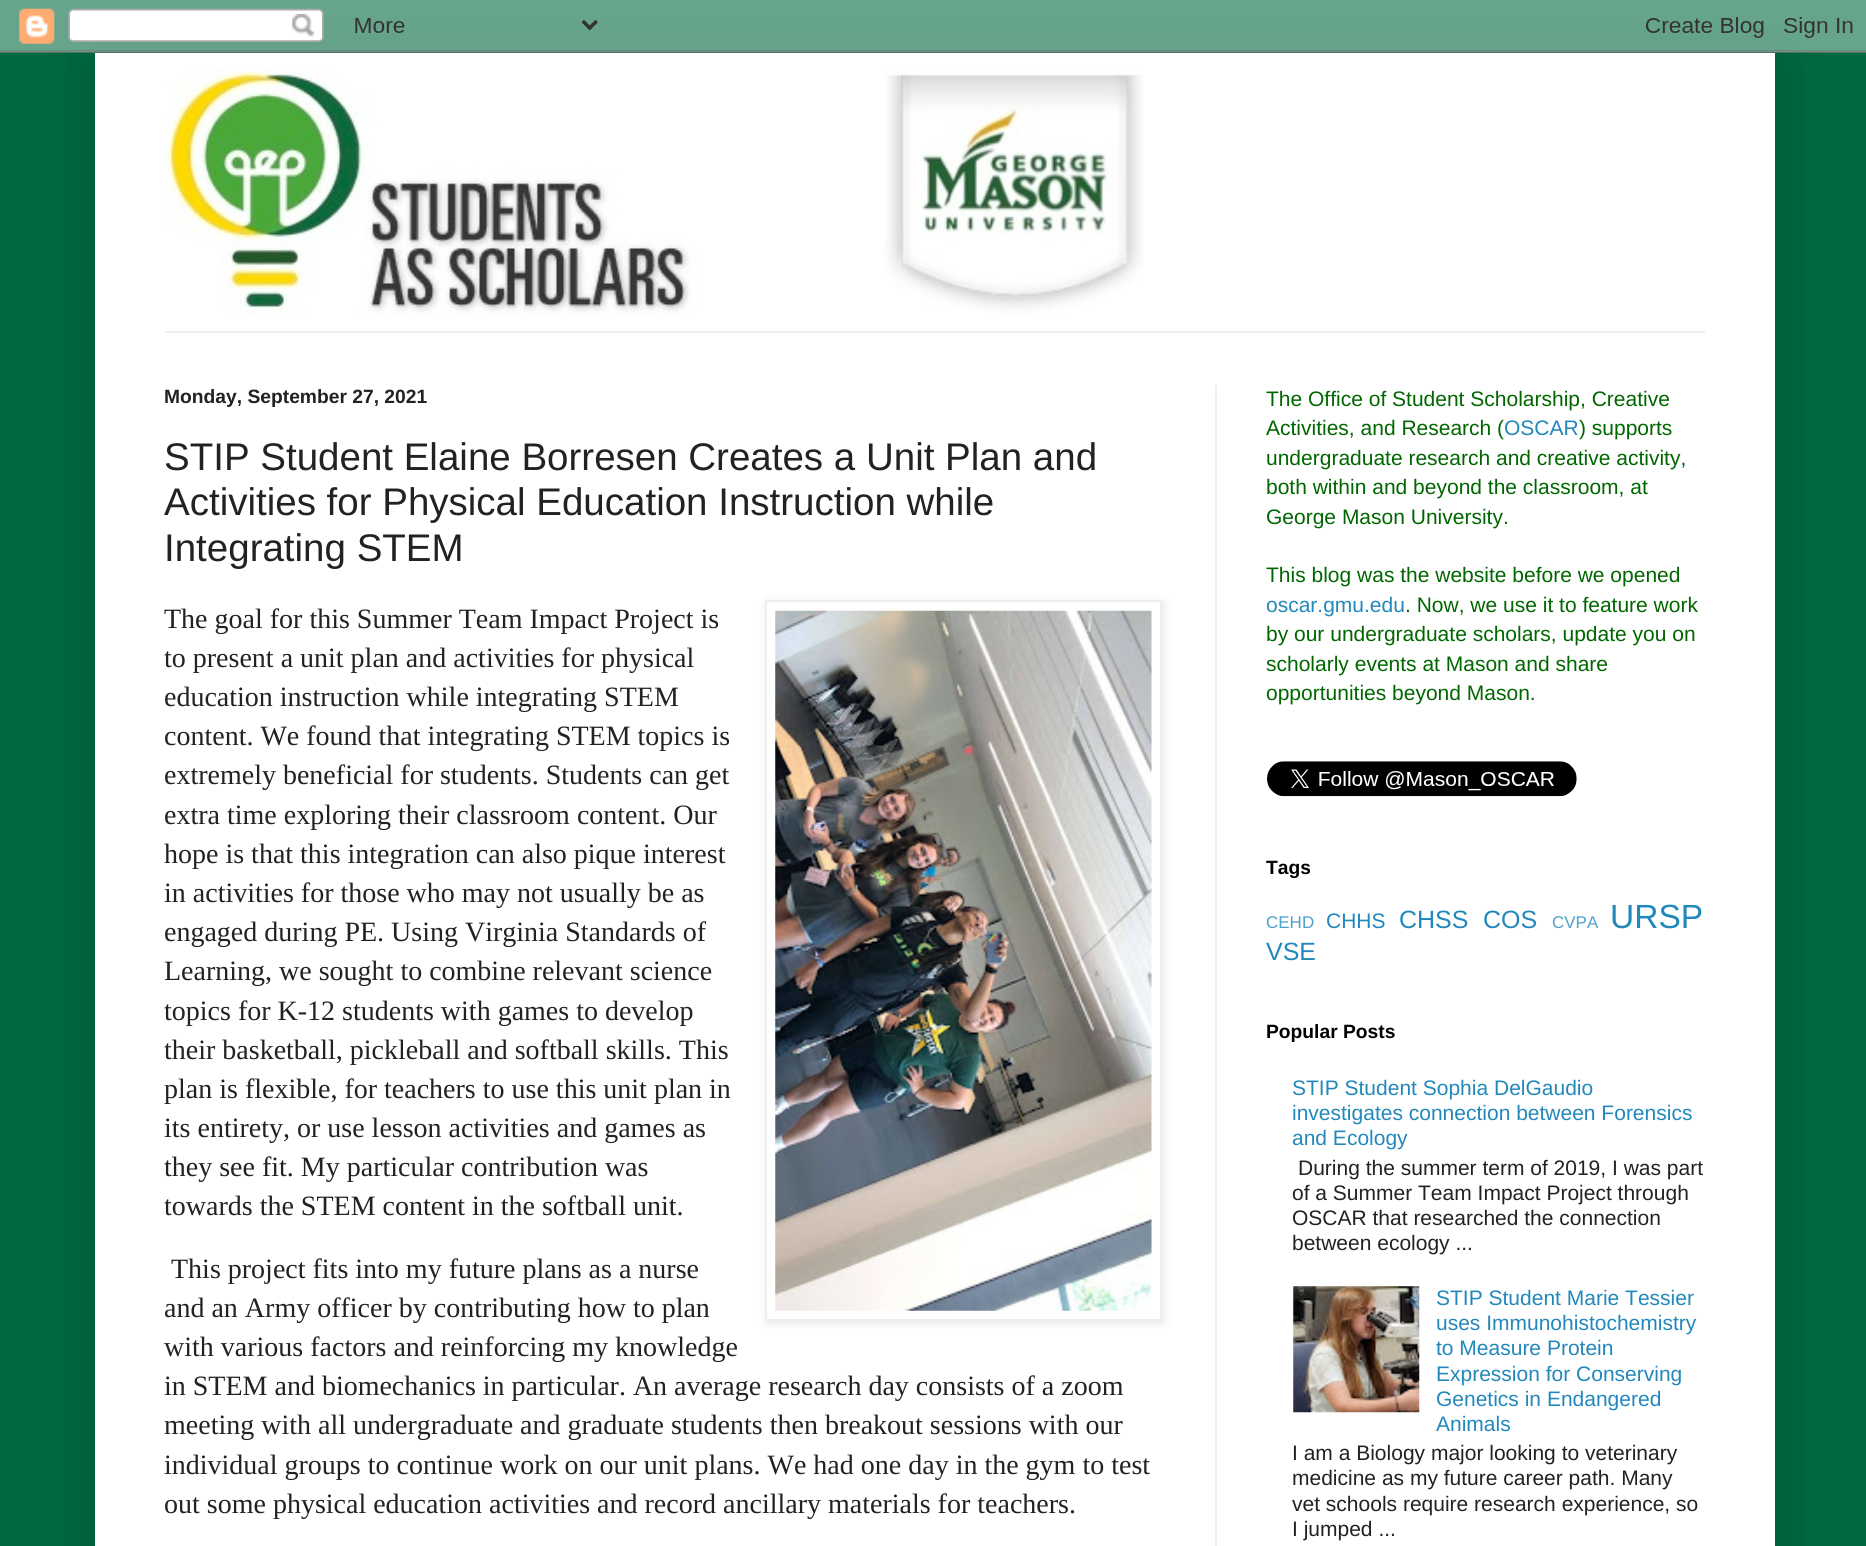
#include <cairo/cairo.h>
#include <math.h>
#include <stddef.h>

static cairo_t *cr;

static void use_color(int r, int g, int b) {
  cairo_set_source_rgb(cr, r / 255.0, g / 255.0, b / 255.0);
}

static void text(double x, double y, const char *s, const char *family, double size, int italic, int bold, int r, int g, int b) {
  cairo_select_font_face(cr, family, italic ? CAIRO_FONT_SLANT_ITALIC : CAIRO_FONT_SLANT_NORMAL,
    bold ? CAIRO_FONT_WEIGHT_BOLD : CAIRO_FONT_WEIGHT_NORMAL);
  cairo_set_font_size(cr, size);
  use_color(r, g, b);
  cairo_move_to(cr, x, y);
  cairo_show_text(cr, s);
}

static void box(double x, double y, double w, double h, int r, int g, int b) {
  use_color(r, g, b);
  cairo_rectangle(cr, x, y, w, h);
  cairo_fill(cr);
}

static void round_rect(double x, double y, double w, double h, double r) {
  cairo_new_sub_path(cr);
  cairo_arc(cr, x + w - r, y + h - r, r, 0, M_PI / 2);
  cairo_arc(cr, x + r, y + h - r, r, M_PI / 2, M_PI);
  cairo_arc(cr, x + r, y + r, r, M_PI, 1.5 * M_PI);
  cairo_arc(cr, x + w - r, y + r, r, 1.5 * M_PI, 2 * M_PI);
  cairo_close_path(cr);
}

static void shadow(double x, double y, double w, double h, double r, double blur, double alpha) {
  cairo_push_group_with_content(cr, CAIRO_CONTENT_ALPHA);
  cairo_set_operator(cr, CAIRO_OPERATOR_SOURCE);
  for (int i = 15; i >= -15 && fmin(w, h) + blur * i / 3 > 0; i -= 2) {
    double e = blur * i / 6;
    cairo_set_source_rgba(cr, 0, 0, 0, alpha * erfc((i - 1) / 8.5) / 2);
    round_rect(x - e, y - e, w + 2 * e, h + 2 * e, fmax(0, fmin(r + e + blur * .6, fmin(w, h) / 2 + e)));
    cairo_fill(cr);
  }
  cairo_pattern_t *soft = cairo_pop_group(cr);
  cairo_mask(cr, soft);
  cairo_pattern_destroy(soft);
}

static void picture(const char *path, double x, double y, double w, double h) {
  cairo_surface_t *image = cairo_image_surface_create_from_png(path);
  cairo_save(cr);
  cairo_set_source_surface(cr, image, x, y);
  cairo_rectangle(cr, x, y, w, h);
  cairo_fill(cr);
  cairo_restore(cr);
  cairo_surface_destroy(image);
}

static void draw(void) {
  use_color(0, 105, 64);
  cairo_paint(cr);
  use_color(0, 0, 0);
  shadow(95, 53, 1680, 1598, 0, 35, 0.15);
  picture("img_01.png", 0, 0, 1866, 53);
  box(95, 53, 1680, 1493, 255, 255, 255);
  picture("img_02.png", 166, 70, 978, 246);
  box(165, 331, 1540, 2, 238, 238, 238);
  box(1215, 385, 2, 1161, 238, 238, 238);
  use_color(0, 0, 0);
  shadow(767, 602, 397, 721, 0, 4.5, 0.1);
  use_color(255, 255, 255);
  cairo_rectangle(cr, 766, 601, 395, 719);
  cairo_fill_preserve(cr);
  use_color(238, 238, 238);
  cairo_stroke(cr);
  picture("img_03.png", 775, 610, 377, 701);
  picture("img_04.png", 1267, 761, 310, 36);
  picture("img_05.png", 1293, 1286, 127, 127);
  text(164, 403, "Monday, September 27, 2021", "Liberation Sans", 19.25, 0, 1, 34, 34, 34);
  text(164, 470, "STIP Student Elaine Borresen Creates a Unit Plan and", "Liberation Sans", 38.5, 0, 0, 34, 34, 34);
  text(164, 515, "Activities for Physical Education Instruction while", "Liberation Sans", 38.5, 0, 0, 34, 34, 34);
  text(164, 561, "Integrating STEM", "Liberation Sans", 38.5, 0, 0, 34, 34, 34);
  text(164, 628, "The goal for this Summer Team Impact Project is", "Liberation Serif", 28, 0, 0, 34, 34, 34);
  text(164, 667, "to present a unit plan and activities for physical", "Liberation Serif", 28, 0, 0, 34, 34, 34);
  text(164, 706, "education instruction while integrating STEM", "Liberation Serif", 28, 0, 0, 34, 34, 34);
  text(164, 745, "content. We found that integrating STEM topics is", "Liberation Serif", 28, 0, 0, 34, 34, 34);
  text(164, 784, "extremely beneficial for students. Students can get", "Liberation Serif", 28, 0, 0, 34, 34, 34);
  text(164, 824, "extra time exploring their classroom content. Our", "Liberation Serif", 28, 0, 0, 34, 34, 34);
  text(164, 863, "hope is that this integration can also pique interest", "Liberation Serif", 28, 0, 0, 34, 34, 34);
  text(164, 902, "in activities for those who may not usually be as", "Liberation Serif", 28, 0, 0, 34, 34, 34);
  text(164, 941, "engaged during PE. Using Virginia Standards of", "Liberation Serif", 28, 0, 0, 34, 34, 34);
  text(164, 980, "Learning, we sought to combine relevant science", "Liberation Serif", 28, 0, 0, 34, 34, 34);
  text(164, 1020, "topics for K-12 students with games to develop", "Liberation Serif", 28, 0, 0, 34, 34, 34);
  text(164, 1059, "their basketball, pickleball and softball skills. This", "Liberation Serif", 28, 0, 0, 34, 34, 34);
  text(164, 1098, "plan is flexible, for teachers to use this unit plan in", "Liberation Serif", 28, 0, 0, 34, 34, 34);
  text(164, 1137, "its entirety, or use lesson activities and games as", "Liberation Serif", 28, 0, 0, 34, 34, 34);
  text(164, 1176, "they see fit. My particular contribution was", "Liberation Serif", 28, 0, 0, 34, 34, 34);
  text(164, 1215, "towards the STEM content in the softball unit.", "Liberation Serif", 28, 0, 0, 34, 34, 34);
  text(171, 1278, "This project fits into my future plans as a nurse", "Liberation Serif", 28, 0, 0, 34, 34, 34);
  text(164, 1317, "and an Army officer by contributing how to plan", "Liberation Serif", 28, 0, 0, 34, 34, 34);
  text(164, 1356, "with various factors and reinforcing my knowledge", "Liberation Serif", 28, 0, 0, 34, 34, 34);
  text(164, 1395, "in STEM and biomechanics in particular. An average research day consists of a zoom", "Liberation Serif", 28, 0, 0, 34, 34, 34);
  text(164, 1434, "meeting with all undergraduate and graduate students then breakout sessions with our", "Liberation Serif", 28, 0, 0, 34, 34, 34);
  text(164, 1474, "individual groups to continue work on our unit plans. We had one day in the gym to test", "Liberation Serif", 28, 0, 0, 34, 34, 34);
  text(164, 1513, "out some physical education activities and record ancillary materials for teachers.", "Liberation Serif", 28, 0, 0, 34, 34, 34);
  text(1266, 406, "The Office of Student Scholarship, Creative", "Liberation Sans", 21, 0, 0, 0, 102, 0);
  text(1266, 435, "Activities, and Research (", "Liberation Sans", 21, 0, 0, 0, 102, 0);
  text(1504, 435, "OSCAR", "Liberation Sans", 21, 0, 0, 34, 136, 187);
  text(1579, 435, ") supports", "Liberation Sans", 21, 0, 0, 0, 102, 0);
  text(1266, 465, "undergraduate research and creative activity,", "Liberation Sans", 21, 0, 0, 0, 102, 0);
  text(1266, 494, "both within and beyond the classroom, at", "Liberation Sans", 21, 0, 0, 0, 102, 0);
  text(1266, 524, "George Mason University.", "Liberation Sans", 21, 0, 0, 0, 102, 0);
  text(1266, 582, "This blog was the website before we opened", "Liberation Sans", 21, 0, 0, 0, 102, 0);
  text(1266, 612, "oscar.gmu.edu", "Liberation Sans", 21, 0, 0, 34, 136, 187);
  text(1405, 612, ". Now, we use it to feature work", "Liberation Sans", 21, 0, 0, 0, 102, 0);
  text(1266, 641, "by our undergraduate scholars, update you on", "Liberation Sans", 21, 0, 0, 0, 102, 0);
  text(1266, 671, "scholarly events at Mason and share", "Liberation Sans", 21, 0, 0, 0, 102, 0);
  text(1266, 700, "opportunities beyond Mason.", "Liberation Sans", 21, 0, 0, 0, 102, 0);
  text(1266, 874, "Tags", "Liberation Sans", 19.25, 0, 1, 0, 0, 0);
  text(1266, 928, "CEHD", "Liberation Sans", 17, 0, 0, 78, 160, 201);
  text(1326, 928, "CHHS", "Liberation Sans", 21, 0, 0, 34, 136, 187);
  text(1399, 928, "CHSS", "Liberation Sans", 25, 0, 0, 34, 136, 187);
  text(1483, 928, "COS", "Liberation Sans", 25, 0, 0, 34, 136, 187);
  text(1552, 928, "CVPA", "Liberation Sans", 17, 0, 0, 78, 160, 201);
  text(1610, 928, "URSP", "Liberation Sans", 33.5, 0, 0, 34, 136, 187);
  text(1266, 960, "VSE", "Liberation Sans", 25, 0, 0, 34, 136, 187);
  text(1266, 1038, "Popular Posts", "Liberation Sans", 19.25, 0, 1, 0, 0, 0);
  text(1292, 1095, "STIP Student Sophia DelGaudio", "Liberation Sans", 21, 0, 0, 34, 136, 187);
  text(1292, 1120, "investigates connection between Forensics", "Liberation Sans", 21, 0, 0, 34, 136, 187);
  text(1292, 1145, "and Ecology", "Liberation Sans", 21, 0, 0, 34, 136, 187);
  text(1298, 1175, "During the summer term of 2019, I was part", "Liberation Sans", 21, 0, 0, 34, 34, 34);
  text(1292, 1200, "of a Summer Team Impact Project through", "Liberation Sans", 21, 0, 0, 34, 34, 34);
  text(1292, 1225, "OSCAR that researched the connection", "Liberation Sans", 21, 0, 0, 34, 34, 34);
  text(1292, 1250, "between ecology ...", "Liberation Sans", 21, 0, 0, 34, 34, 34);
  text(1436, 1305, "STIP Student Marie Tessier", "Liberation Sans", 21, 0, 0, 34, 136, 187);
  text(1436, 1330, "uses Immunohistochemistry", "Liberation Sans", 21, 0, 0, 34, 136, 187);
  text(1436, 1355, "to Measure Protein", "Liberation Sans", 21, 0, 0, 34, 136, 187);
  text(1436, 1381, "Expression for Conserving", "Liberation Sans", 21, 0, 0, 34, 136, 187);
  text(1436, 1406, "Genetics in Endangered", "Liberation Sans", 21, 0, 0, 34, 136, 187);
  text(1436, 1431, "Animals", "Liberation Sans", 21, 0, 0, 34, 136, 187);
  text(1292, 1460, "I am a Biology major looking to veterinary", "Liberation Sans", 21, 0, 0, 34, 34, 34);
  text(1292, 1485, "medicine as my future career path. Many", "Liberation Sans", 21, 0, 0, 34, 34, 34);
  text(1292, 1511, "vet schools require research experience, so", "Liberation Sans", 21, 0, 0, 34, 34, 34);
  text(1292, 1536, "I jumped ...", "Liberation Sans", 21, 0, 0, 34, 34, 34);
}

int main(void) {
  cairo_surface_t *surface = cairo_image_surface_create(CAIRO_FORMAT_RGB24, 1866, 1546);
  cr = cairo_create(surface);
  cairo_font_options_t *options = cairo_font_options_create();
  cairo_font_options_set_hint_metrics(options, CAIRO_HINT_METRICS_OFF);
  cairo_font_options_set_hint_style(options, CAIRO_HINT_STYLE_NONE);
  cairo_set_font_options(cr, options);
  cairo_set_miter_limit(cr, 4);
  draw();
  cairo_surface_write_to_png(surface, "out.png");
  cairo_font_options_destroy(options);
  cairo_destroy(cr);
  cairo_surface_destroy(surface);
  return 0;
}
